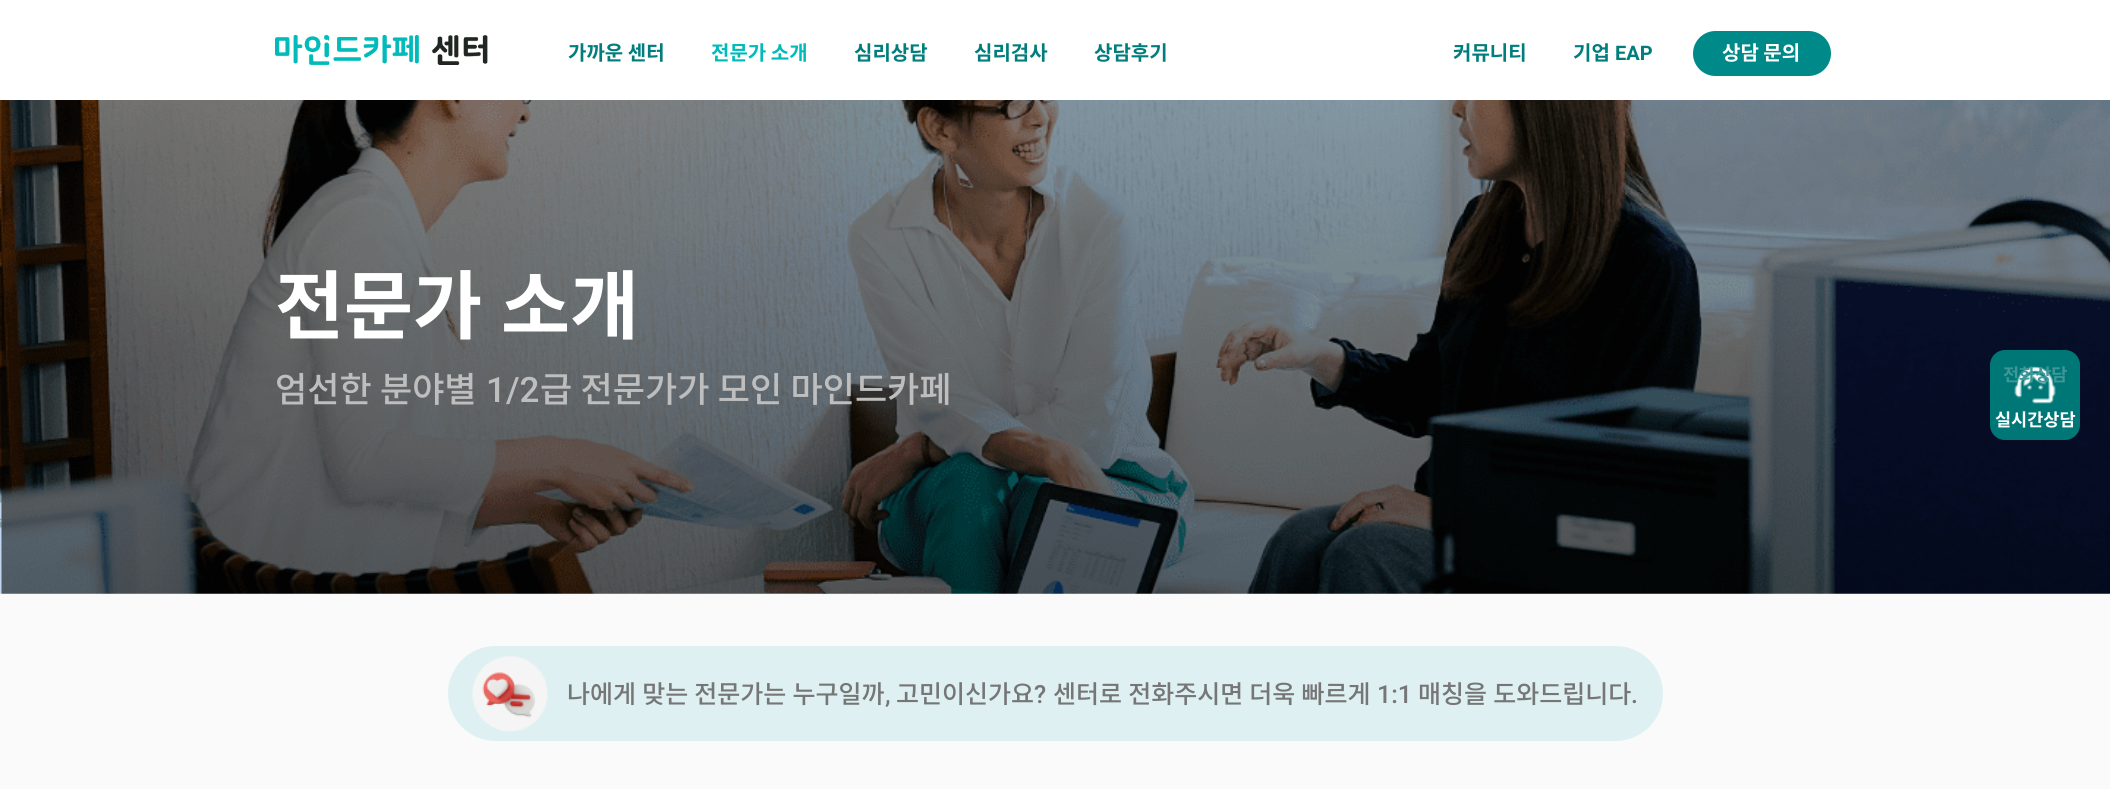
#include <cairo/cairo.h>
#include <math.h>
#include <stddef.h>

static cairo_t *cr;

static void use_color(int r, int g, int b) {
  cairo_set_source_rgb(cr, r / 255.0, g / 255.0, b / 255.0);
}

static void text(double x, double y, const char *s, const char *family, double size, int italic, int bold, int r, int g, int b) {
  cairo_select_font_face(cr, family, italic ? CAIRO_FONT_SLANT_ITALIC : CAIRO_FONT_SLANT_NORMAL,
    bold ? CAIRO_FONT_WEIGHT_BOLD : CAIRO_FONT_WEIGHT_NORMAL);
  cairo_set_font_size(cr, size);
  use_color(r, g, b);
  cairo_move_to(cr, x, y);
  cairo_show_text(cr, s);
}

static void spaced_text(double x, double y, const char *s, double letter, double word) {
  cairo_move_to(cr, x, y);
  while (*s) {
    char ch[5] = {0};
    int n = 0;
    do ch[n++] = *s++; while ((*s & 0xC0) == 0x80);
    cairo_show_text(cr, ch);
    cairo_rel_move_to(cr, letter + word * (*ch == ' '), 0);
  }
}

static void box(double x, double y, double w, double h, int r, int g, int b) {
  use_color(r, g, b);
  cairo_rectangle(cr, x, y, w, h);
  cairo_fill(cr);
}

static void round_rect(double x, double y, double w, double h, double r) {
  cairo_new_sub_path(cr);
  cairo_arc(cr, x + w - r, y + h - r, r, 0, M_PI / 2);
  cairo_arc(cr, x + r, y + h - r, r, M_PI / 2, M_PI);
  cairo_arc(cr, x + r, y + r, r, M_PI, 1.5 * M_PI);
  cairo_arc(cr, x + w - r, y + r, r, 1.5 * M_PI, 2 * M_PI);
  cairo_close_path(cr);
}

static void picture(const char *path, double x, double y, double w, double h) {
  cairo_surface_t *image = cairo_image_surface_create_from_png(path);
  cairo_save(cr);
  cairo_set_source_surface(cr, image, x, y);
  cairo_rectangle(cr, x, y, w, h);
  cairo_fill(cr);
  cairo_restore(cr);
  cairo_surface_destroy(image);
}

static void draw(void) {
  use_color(250, 250, 250);
  cairo_paint(cr);
  box(0, 0, 2110, 100, 255, 255, 255);
  picture("img_01.png", 275, 34, 213, 31);
  use_color(0, 137, 137);
  round_rect(1693, 31, 138, 45, 22.5);
  cairo_fill(cr);
  picture("img_02.png", 0, 100, 2110, 494);
  use_color(222, 240, 242);
  round_rect(448, 646, 1215, 95, 47.5);
  cairo_fill(cr);
  picture("img_03.png", 472, 656, 76, 76);
  use_color(0, 119, 119);
  round_rect(1990, 350, 90, 90, 15);
  cairo_fill(cr);
  picture("img_04.png", 2014, 366, 42, 38);
  text(568, 60, "가까운 센터", "Noto Sans KR", 20, 0, 1, 0, 125, 124);
  text(711, 60, "전문가 소개", "Noto Sans KR", 20, 0, 1, 0, 187, 186);
  text(854, 60, "심리상담", "Noto Sans KR", 20, 0, 1, 0, 125, 124);
  text(974, 60, "심리검사", "Noto Sans KR", 20, 0, 1, 0, 125, 124);
  text(1094, 60, "상담후기", "Noto Sans KR", 20, 0, 1, 0, 125, 124);
  text(1453, 60, "커뮤니티", "Noto Sans KR", 20, 0, 1, 0, 125, 124);
  text(1573, 60, "기업", "Noto Sans KR", 20, 0, 1, 0, 125, 124);
  text(1615, 60, "EAP", "Roboto", 20, 0, 1, 0, 125, 124);
  text(1722, 60, "상담 문의", "Noto Sans KR", 20, 0, 1, 255, 255, 255);
  cairo_set_font_size(cr, 75);
  spaced_text(275, 333, "전문가 소개", 0, 2);
  cairo_select_font_face(cr, "Noto Sans KR Medium", CAIRO_FONT_SLANT_NORMAL, CAIRO_FONT_WEIGHT_NORMAL);
  cairo_set_font_size(cr, 35);
  use_color(190, 190, 190);
  spaced_text(275, 402, "엄선한 분야별", 0, 0.5);
  text(486, 402, "1/2", "Roboto Medium", 35, 0, 0, 190, 190, 190);
  cairo_select_font_face(cr, "Noto Sans KR Medium", CAIRO_FONT_SLANT_NORMAL, CAIRO_FONT_WEIGHT_NORMAL);
  spaced_text(540, 402, "급 전문가가 모인 마인드카페", 0, 0.5);
  cairo_set_font_size(cr, 25);
  use_color(118, 118, 118);
  spaced_text(567, 703, "나에게 맞는 전문가는 누구일까", 0, 0.5);
  text(885, 703, ",", "Roboto Medium", 25, 0, 0, 118, 118, 118);
  text(896, 703, "고민이신가요", "Noto Sans KR Medium", 25, 0, 0, 118, 118, 118);
  text(1034, 703, "?", "Roboto Medium", 25, 0, 0, 118, 118, 118);
  cairo_select_font_face(cr, "Noto Sans KR Medium", CAIRO_FONT_SLANT_NORMAL, CAIRO_FONT_WEIGHT_NORMAL);
  spaced_text(1053, 703, "센터로 전화주시면 더욱 빠르게", 0, 0.5);
  text(1377, 703, "1:1", "Roboto Medium", 25, 0, 0, 118, 118, 118);
  cairo_select_font_face(cr, "Noto Sans KR Medium", CAIRO_FONT_SLANT_NORMAL, CAIRO_FONT_WEIGHT_NORMAL);
  spaced_text(1418, 703, "매칭을 도와드립니다", 0, 0.5);
  text(1631, 703, ".", "Roboto Medium", 25, 0, 0, 118, 118, 118);
  text(2003, 381, "전화상담", "Noto Sans KR", 17.5, 0, 1, 62, 152, 152);
  text(1995, 426, "실시간상담", "Noto Sans KR", 17.5, 0, 1, 255, 255, 255);
}

int main(void) {
  cairo_surface_t *surface = cairo_image_surface_create(CAIRO_FORMAT_RGB24, 2110, 789);
  cr = cairo_create(surface);
  cairo_font_options_t *options = cairo_font_options_create();
  cairo_font_options_set_hint_metrics(options, CAIRO_HINT_METRICS_OFF);
  cairo_font_options_set_hint_style(options, CAIRO_HINT_STYLE_NONE);
  cairo_set_font_options(cr, options);
  cairo_set_miter_limit(cr, 4);
  draw();
  cairo_surface_write_to_png(surface, "out.png");
  cairo_font_options_destroy(options);
  cairo_destroy(cr);
  cairo_surface_destroy(surface);
  return 0;
}
